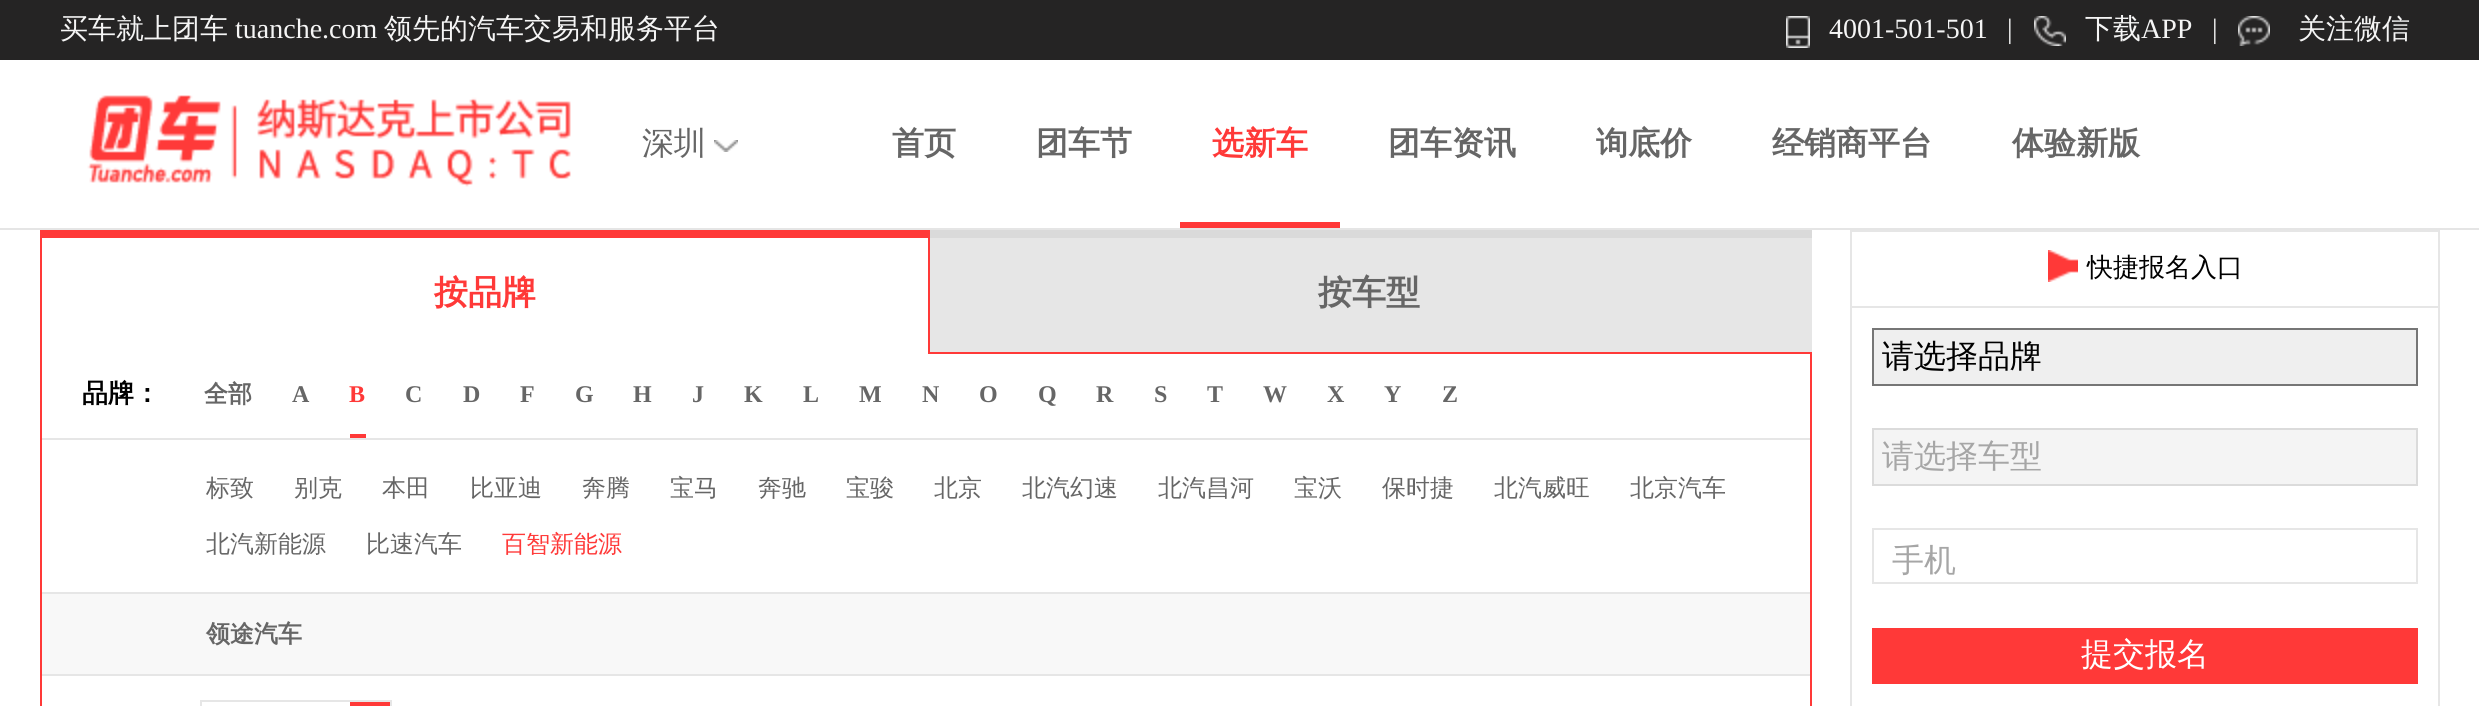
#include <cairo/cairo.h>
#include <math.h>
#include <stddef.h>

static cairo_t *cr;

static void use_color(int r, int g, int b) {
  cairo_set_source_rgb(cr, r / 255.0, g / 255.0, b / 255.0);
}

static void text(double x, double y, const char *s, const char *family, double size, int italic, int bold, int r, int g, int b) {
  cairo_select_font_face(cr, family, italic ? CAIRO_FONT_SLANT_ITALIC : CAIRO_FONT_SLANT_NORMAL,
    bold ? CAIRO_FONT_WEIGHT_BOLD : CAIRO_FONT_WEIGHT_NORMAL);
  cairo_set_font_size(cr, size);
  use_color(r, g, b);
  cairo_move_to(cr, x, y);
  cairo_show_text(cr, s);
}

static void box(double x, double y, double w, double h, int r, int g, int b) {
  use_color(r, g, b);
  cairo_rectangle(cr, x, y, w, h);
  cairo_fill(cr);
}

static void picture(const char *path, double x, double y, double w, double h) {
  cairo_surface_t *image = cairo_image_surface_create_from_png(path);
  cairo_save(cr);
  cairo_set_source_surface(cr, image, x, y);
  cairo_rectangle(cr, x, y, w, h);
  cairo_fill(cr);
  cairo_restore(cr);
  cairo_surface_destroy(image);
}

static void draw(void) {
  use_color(255, 255, 255);
  cairo_paint(cr);
  box(0, 0, 2479, 60, 37, 36, 36);
  picture("img_01.png", 1786, 16, 24, 32);
  picture("img_02.png", 2034, 16, 32, 30);
  picture("img_03.png", 2238, 16, 32, 30);
  box(0, 228, 2479, 2, 229, 229, 229);
  picture("img_04.png", 87, 95, 484, 92);
  picture("img_05.png", 714, 140, 24, 12);
  box(1180, 222, 160, 6, 255, 56, 56);
  cairo_rectangle(cr, 41, 353, 1770, 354);
  use_color(255, 57, 56);
  cairo_stroke(cr);
  box(42, 352, 886, 2, 255, 255, 255);
  box(926, 230, 886, 8, 218, 218, 218);
  box(40, 230, 890, 8, 255, 57, 56);
  box(928, 230, 2, 124, 255, 57, 56);
  box(40, 230, 2, 124, 255, 57, 56);
  box(930, 238, 882, 114, 230, 230, 230);
  box(42, 438, 1768, 2, 230, 230, 230);
  box(350, 434, 16, 4, 255, 57, 56);
  box(42, 592, 1768, 2, 230, 230, 230);
  box(42, 594, 1768, 80, 248, 248, 248);
  box(42, 674, 1768, 2, 230, 230, 230);
  cairo_rectangle(cr, 201, 701, 190, 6);
  cairo_stroke(cr);
  box(350, 702, 40, 4, 255, 57, 56);
  cairo_rectangle(cr, 1851, 231, 588, 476);
  use_color(230, 230, 230);
  cairo_stroke(cr);
  box(1852, 306, 586, 2, 230, 230, 230);
  picture("img_06.png", 2048, 250, 30, 32);
  use_color(239, 239, 239);
  cairo_rectangle(cr, 1873, 329, 544, 56);
  cairo_fill_preserve(cr);
  use_color(118, 118, 118);
  cairo_stroke(cr);
  use_color(244, 244, 244);
  cairo_rectangle(cr, 1873, 429, 544, 56);
  cairo_fill_preserve(cr);
  use_color(219, 219, 219);
  cairo_stroke(cr);
  cairo_rectangle(cr, 1873, 529, 544, 54);
  use_color(230, 230, 230);
  cairo_stroke(cr);
  box(1872, 628, 546, 56, 255, 57, 56);
  text(60, 38, "买车就上团车", "WenQuanYi Zen Hei Medium", 28, 0, 0, 245, 245, 245);
  text(235, 38, "tuanche.com", "Liberation Serif", 28, 0, 0, 245, 245, 245);
  text(384, 38, "领先的汽车交易和服务平台", "WenQuanYi Zen Hei Medium", 28, 0, 0, 245, 245, 245);
  text(1829, 38, "4001-501-501", "Liberation Serif", 28, 0, 0, 245, 245, 245);
  text(2007, 38, "|", "Liberation Serif", 28, 0, 0, 245, 245, 245);
  text(2085, 38, "下载", "WenQuanYi Zen Hei Medium", 28, 0, 0, 245, 245, 245);
  text(2141, 38, "APP", "Liberation Serif", 28, 0, 0, 245, 245, 245);
  text(2212, 38, "|", "Liberation Serif", 28, 0, 0, 245, 245, 245);
  text(2298, 38, "关注微信", "WenQuanYi Zen Hei Medium", 28, 0, 0, 245, 245, 245);
  text(642, 154, "深圳", "WenQuanYi Zen Hei Medium", 32, 0, 0, 102, 102, 102);
  text(892, 154, "首页", "WenQuanYi Zen Hei", 32, 0, 1, 102, 102, 102);
  text(1036, 154, "团车节", "WenQuanYi Zen Hei", 32, 0, 1, 102, 102, 102);
  text(1212, 154, "选新车", "WenQuanYi Zen Hei", 32, 0, 1, 255, 57, 56);
  text(1388, 154, "团车资讯", "WenQuanYi Zen Hei", 32, 0, 1, 102, 102, 102);
  text(1596, 154, "询底价", "WenQuanYi Zen Hei", 32, 0, 1, 102, 102, 102);
  text(1772, 154, "经销商平台", "WenQuanYi Zen Hei", 32, 0, 1, 102, 102, 102);
  text(2012, 154, "体验新版", "WenQuanYi Zen Hei", 32, 0, 1, 102, 102, 102);
  text(434, 304, "按品牌", "WenQuanYi Zen Hei", 34, 0, 1, 255, 57, 56);
  text(1318, 304, "按车型", "WenQuanYi Zen Hei", 34, 0, 1, 102, 102, 102);
  text(82, 402, "品牌：", "WenQuanYi Zen Hei", 26, 0, 1, 0, 0, 0);
  text(204, 402, "全部", "WenQuanYi Zen Hei", 24, 0, 1, 102, 102, 102);
  text(292, 402, "A", "Liberation Serif", 24, 0, 1, 102, 102, 102);
  text(349, 402, "B", "Liberation Serif", 24, 0, 1, 255, 57, 56);
  text(405, 402, "C", "Liberation Serif", 24, 0, 1, 102, 102, 102);
  text(463, 402, "D", "Liberation Serif", 24, 0, 1, 102, 102, 102);
  text(520, 402, "F", "Liberation Serif", 24, 0, 1, 102, 102, 102);
  text(575, 402, "G", "Liberation Serif", 24, 0, 1, 102, 102, 102);
  text(633, 402, "H", "Liberation Serif", 24, 0, 1, 102, 102, 102);
  text(692, 402, "J", "Liberation Serif", 24, 0, 1, 102, 102, 102);
  text(744, 402, "K", "Liberation Serif", 24, 0, 1, 102, 102, 102);
  text(803, 402, "L", "Liberation Serif", 24, 0, 1, 102, 102, 102);
  text(859, 402, "M", "Liberation Serif", 24, 0, 1, 102, 102, 102);
  text(922, 402, "N", "Liberation Serif", 24, 0, 1, 102, 102, 102);
  text(979, 402, "O", "Liberation Serif", 24, 0, 1, 102, 102, 102);
  text(1038, 402, "Q", "Liberation Serif", 24, 0, 1, 102, 102, 102);
  text(1096, 402, "R", "Liberation Serif", 24, 0, 1, 102, 102, 102);
  text(1154, 402, "S", "Liberation Serif", 24, 0, 1, 102, 102, 102);
  text(1207, 402, "T", "Liberation Serif", 24, 0, 1, 102, 102, 102);
  text(1263, 402, "W", "Liberation Serif", 24, 0, 1, 102, 102, 102);
  text(1327, 402, "X", "Liberation Serif", 24, 0, 1, 102, 102, 102);
  text(1384, 402, "Y", "Liberation Serif", 24, 0, 1, 102, 102, 102);
  text(1442, 402, "Z", "Liberation Serif", 24, 0, 1, 102, 102, 102);
  text(206, 496, "标致", "WenQuanYi Zen Hei Medium", 24, 0, 0, 102, 102, 102);
  text(294, 496, "别克", "WenQuanYi Zen Hei Medium", 24, 0, 0, 102, 102, 102);
  text(382, 496, "本田", "WenQuanYi Zen Hei Medium", 24, 0, 0, 102, 102, 102);
  text(470, 496, "比亚迪", "WenQuanYi Zen Hei Medium", 24, 0, 0, 102, 102, 102);
  text(582, 496, "奔腾", "WenQuanYi Zen Hei Medium", 24, 0, 0, 102, 102, 102);
  text(670, 496, "宝马", "WenQuanYi Zen Hei Medium", 24, 0, 0, 102, 102, 102);
  text(758, 496, "奔驰", "WenQuanYi Zen Hei Medium", 24, 0, 0, 102, 102, 102);
  text(846, 496, "宝骏", "WenQuanYi Zen Hei Medium", 24, 0, 0, 102, 102, 102);
  text(934, 496, "北京", "WenQuanYi Zen Hei Medium", 24, 0, 0, 102, 102, 102);
  text(1022, 496, "北汽幻速", "WenQuanYi Zen Hei Medium", 24, 0, 0, 102, 102, 102);
  text(1158, 496, "北汽昌河", "WenQuanYi Zen Hei Medium", 24, 0, 0, 102, 102, 102);
  text(1294, 496, "宝沃", "WenQuanYi Zen Hei Medium", 24, 0, 0, 102, 102, 102);
  text(1382, 496, "保时捷", "WenQuanYi Zen Hei Medium", 24, 0, 0, 102, 102, 102);
  text(1494, 496, "北汽威旺", "WenQuanYi Zen Hei Medium", 24, 0, 0, 102, 102, 102);
  text(1630, 496, "北京汽车", "WenQuanYi Zen Hei Medium", 24, 0, 0, 102, 102, 102);
  text(206, 552, "北汽新能源", "WenQuanYi Zen Hei Medium", 24, 0, 0, 102, 102, 102);
  text(366, 552, "比速汽车", "WenQuanYi Zen Hei Medium", 24, 0, 0, 102, 102, 102);
  text(502, 552, "百智新能源", "WenQuanYi Zen Hei Medium", 24, 0, 0, 255, 57, 56);
  text(206, 642, "领途汽车", "WenQuanYi Zen Hei", 24, 0, 1, 102, 102, 102);
  text(2087, 276, "快捷报名入口", "WenQuanYi Zen Hei Medium", 26, 0, 0, 0, 0, 0);
  text(1882, 367, "请选择品牌", "WenQuanYi Zen Hei Medium", 32, 0, 0, 0, 0, 0);
  text(1882, 467, "请选择车型", "WenQuanYi Zen Hei Medium", 32, 0, 0, 166, 166, 166);
  text(1892, 571, "手机", "WenQuanYi Zen Hei Medium", 32, 0, 0, 166, 166, 166);
  text(2081, 665, "提交报名", "WenQuanYi Zen Hei Medium", 32, 0, 0, 255, 255, 255);
}

int main(void) {
  cairo_surface_t *surface = cairo_image_surface_create(CAIRO_FORMAT_RGB24, 2479, 706);
  cr = cairo_create(surface);
  cairo_font_options_t *options = cairo_font_options_create();
  cairo_font_options_set_hint_metrics(options, CAIRO_HINT_METRICS_OFF);
  cairo_font_options_set_hint_style(options, CAIRO_HINT_STYLE_NONE);
  cairo_set_font_options(cr, options);
  cairo_set_miter_limit(cr, 4);
  draw();
  cairo_surface_write_to_png(surface, "out.png");
  cairo_font_options_destroy(options);
  cairo_destroy(cr);
  cairo_surface_destroy(surface);
  return 0;
}
